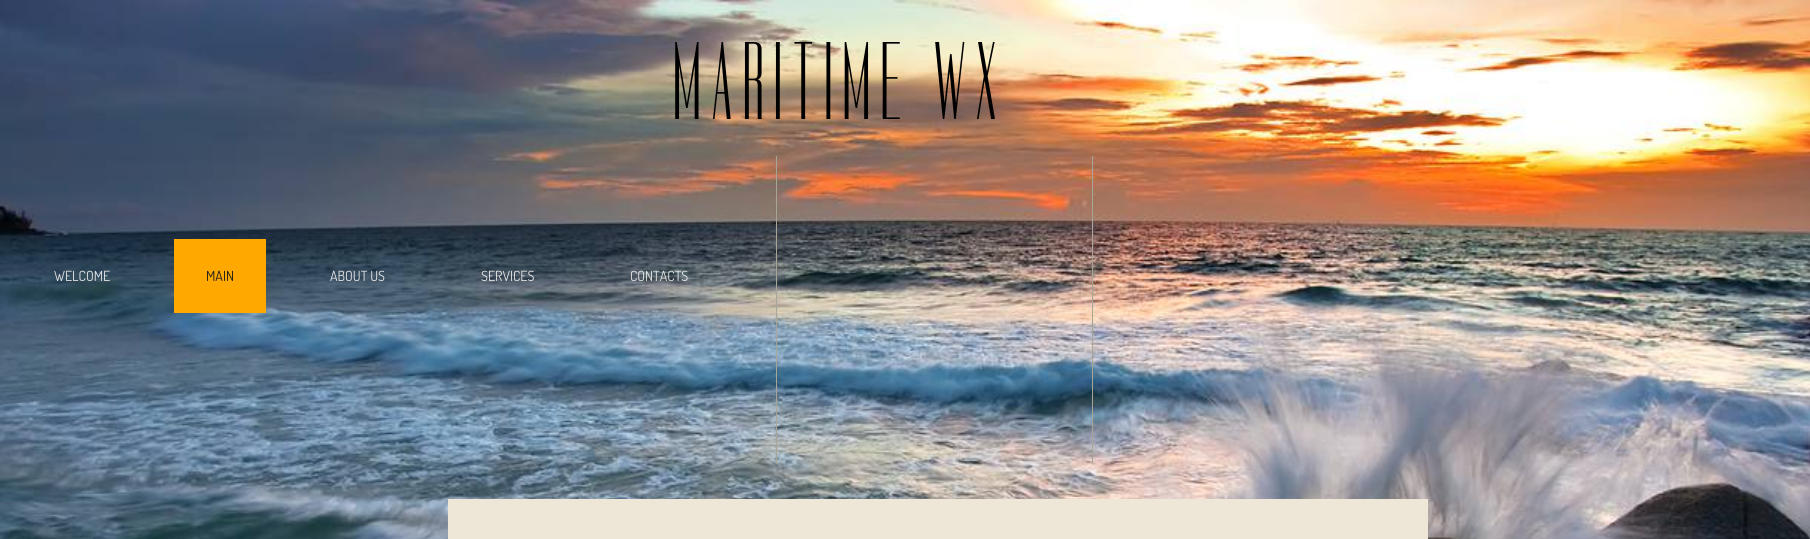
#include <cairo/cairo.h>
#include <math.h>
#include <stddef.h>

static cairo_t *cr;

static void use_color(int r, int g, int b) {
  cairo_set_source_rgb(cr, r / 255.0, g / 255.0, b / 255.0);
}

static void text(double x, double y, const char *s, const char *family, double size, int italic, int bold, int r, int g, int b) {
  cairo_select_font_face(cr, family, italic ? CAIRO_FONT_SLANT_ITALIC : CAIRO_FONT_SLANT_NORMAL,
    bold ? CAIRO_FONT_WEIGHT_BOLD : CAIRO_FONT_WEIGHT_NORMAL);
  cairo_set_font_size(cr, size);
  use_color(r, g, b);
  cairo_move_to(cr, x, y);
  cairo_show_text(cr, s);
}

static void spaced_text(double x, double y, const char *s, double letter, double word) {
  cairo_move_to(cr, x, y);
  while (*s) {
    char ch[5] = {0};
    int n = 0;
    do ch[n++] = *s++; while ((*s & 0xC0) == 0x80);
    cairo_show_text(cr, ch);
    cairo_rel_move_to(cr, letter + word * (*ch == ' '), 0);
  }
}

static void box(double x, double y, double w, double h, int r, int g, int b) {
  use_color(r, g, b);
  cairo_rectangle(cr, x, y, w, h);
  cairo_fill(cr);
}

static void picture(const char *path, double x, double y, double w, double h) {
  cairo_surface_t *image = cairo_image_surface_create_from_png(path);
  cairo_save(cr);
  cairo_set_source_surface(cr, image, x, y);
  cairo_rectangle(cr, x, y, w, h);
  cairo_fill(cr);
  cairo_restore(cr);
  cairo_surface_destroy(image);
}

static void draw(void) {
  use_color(255, 255, 255);
  cairo_paint(cr);
  picture("img_01.png", 0, 0, 1810, 539);
  box(174, 239, 92, 74, 254, 168, 0);
  box(776, 156, 1, 308, 167, 164, 152);
  box(1092, 156, 1, 308, 167, 164, 152);
  box(448, 499, 980, 40, 238, 230, 215);
  cairo_select_font_face(cr, "Dorsa", CAIRO_FONT_SLANT_NORMAL, CAIRO_FONT_WEIGHT_NORMAL);
  cairo_set_font_size(cr, 110);
  use_color(0, 0, 0);
  spaced_text(673, 119, "MARITIME WX", 10, 0);
  text(54, 281, "WELCOME", "Dosis", 14, 0, 0, 227, 227, 227);
  text(206, 281, "MAIN", "Dosis", 14, 0, 0, 27, 27, 27);
  text(330, 281, "ABOUT US", "Dosis", 14, 0, 0, 227, 227, 227);
  text(481, 281, "SERVICES", "Dosis", 14, 0, 0, 227, 227, 227);
  text(630, 281, "CONTACTS", "Dosis", 14, 0, 0, 227, 227, 227);
}

int main(void) {
  cairo_surface_t *surface = cairo_image_surface_create(CAIRO_FORMAT_RGB24, 1810, 539);
  cr = cairo_create(surface);
  cairo_font_options_t *options = cairo_font_options_create();
  cairo_font_options_set_hint_metrics(options, CAIRO_HINT_METRICS_OFF);
  cairo_font_options_set_hint_style(options, CAIRO_HINT_STYLE_NONE);
  cairo_set_font_options(cr, options);
  cairo_set_miter_limit(cr, 4);
  draw();
  cairo_surface_write_to_png(surface, "out.png");
  cairo_font_options_destroy(options);
  cairo_destroy(cr);
  cairo_surface_destroy(surface);
  return 0;
}
